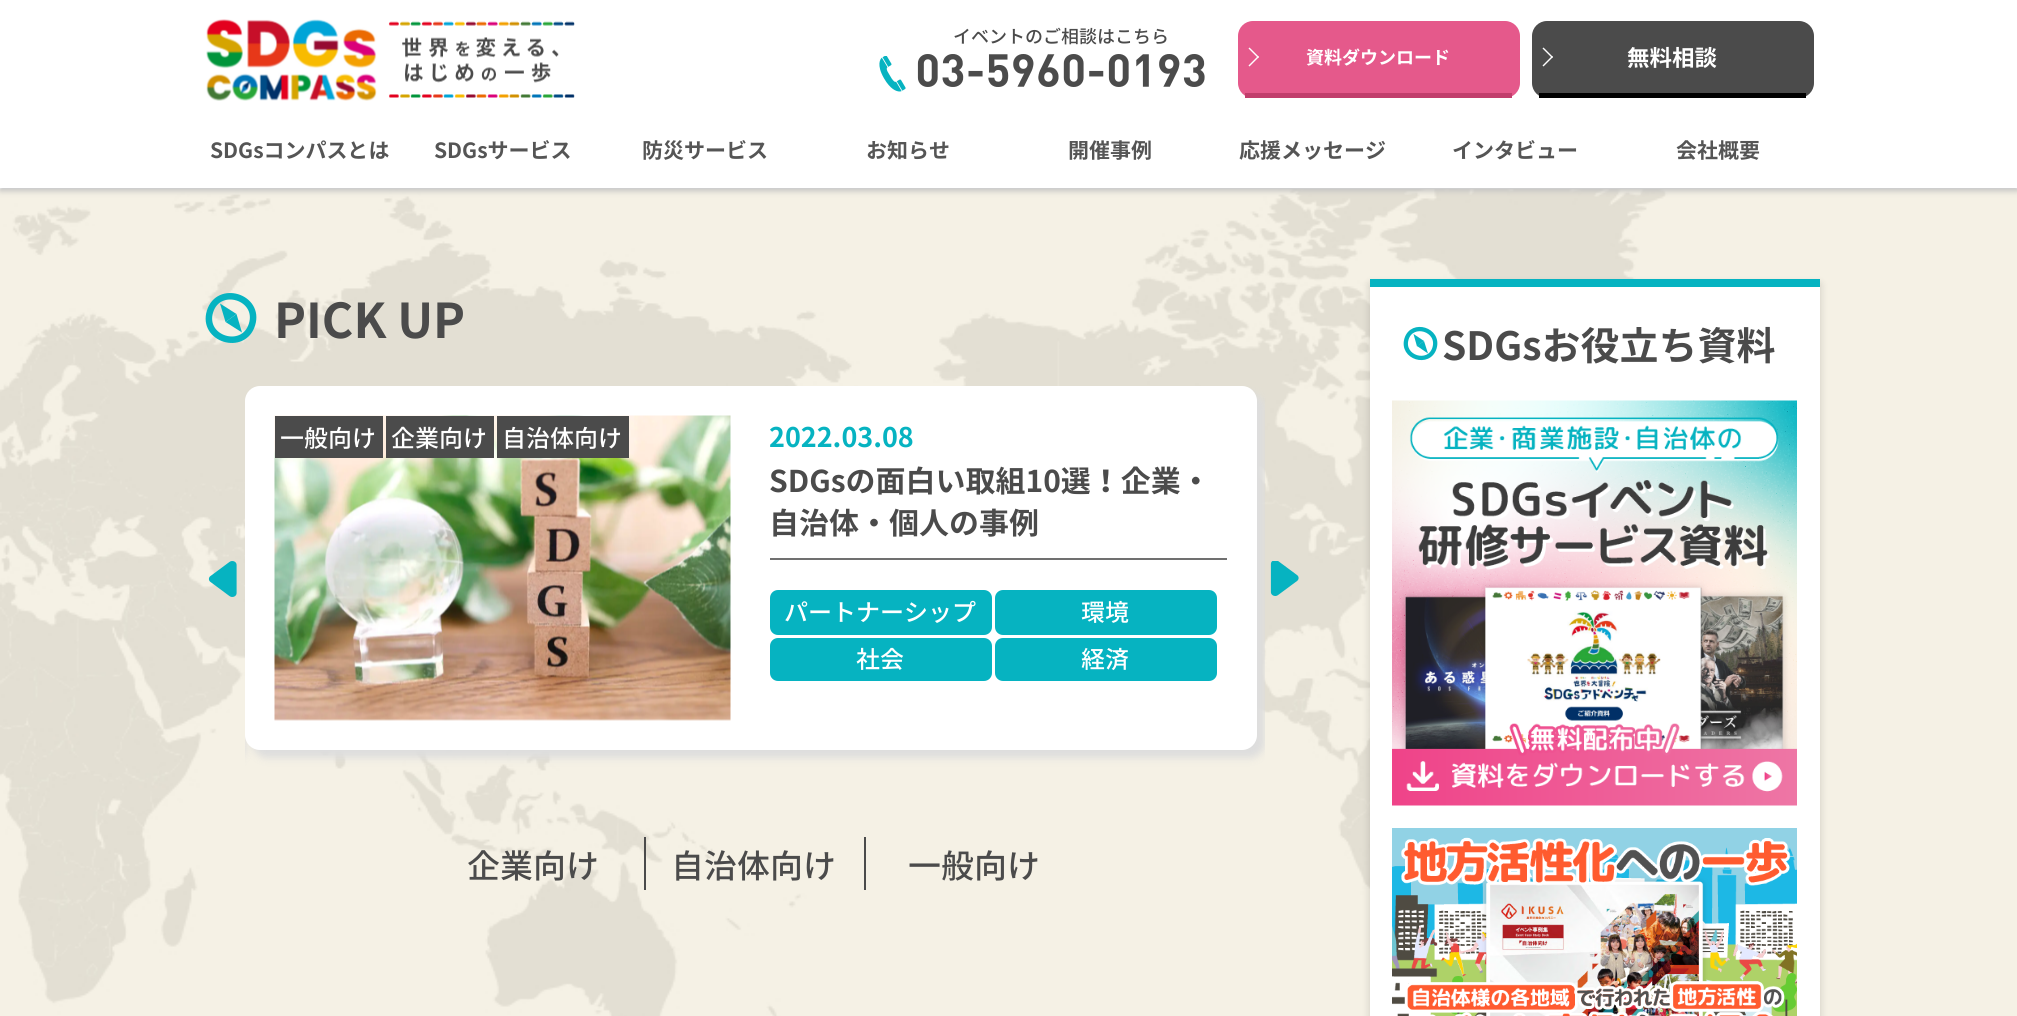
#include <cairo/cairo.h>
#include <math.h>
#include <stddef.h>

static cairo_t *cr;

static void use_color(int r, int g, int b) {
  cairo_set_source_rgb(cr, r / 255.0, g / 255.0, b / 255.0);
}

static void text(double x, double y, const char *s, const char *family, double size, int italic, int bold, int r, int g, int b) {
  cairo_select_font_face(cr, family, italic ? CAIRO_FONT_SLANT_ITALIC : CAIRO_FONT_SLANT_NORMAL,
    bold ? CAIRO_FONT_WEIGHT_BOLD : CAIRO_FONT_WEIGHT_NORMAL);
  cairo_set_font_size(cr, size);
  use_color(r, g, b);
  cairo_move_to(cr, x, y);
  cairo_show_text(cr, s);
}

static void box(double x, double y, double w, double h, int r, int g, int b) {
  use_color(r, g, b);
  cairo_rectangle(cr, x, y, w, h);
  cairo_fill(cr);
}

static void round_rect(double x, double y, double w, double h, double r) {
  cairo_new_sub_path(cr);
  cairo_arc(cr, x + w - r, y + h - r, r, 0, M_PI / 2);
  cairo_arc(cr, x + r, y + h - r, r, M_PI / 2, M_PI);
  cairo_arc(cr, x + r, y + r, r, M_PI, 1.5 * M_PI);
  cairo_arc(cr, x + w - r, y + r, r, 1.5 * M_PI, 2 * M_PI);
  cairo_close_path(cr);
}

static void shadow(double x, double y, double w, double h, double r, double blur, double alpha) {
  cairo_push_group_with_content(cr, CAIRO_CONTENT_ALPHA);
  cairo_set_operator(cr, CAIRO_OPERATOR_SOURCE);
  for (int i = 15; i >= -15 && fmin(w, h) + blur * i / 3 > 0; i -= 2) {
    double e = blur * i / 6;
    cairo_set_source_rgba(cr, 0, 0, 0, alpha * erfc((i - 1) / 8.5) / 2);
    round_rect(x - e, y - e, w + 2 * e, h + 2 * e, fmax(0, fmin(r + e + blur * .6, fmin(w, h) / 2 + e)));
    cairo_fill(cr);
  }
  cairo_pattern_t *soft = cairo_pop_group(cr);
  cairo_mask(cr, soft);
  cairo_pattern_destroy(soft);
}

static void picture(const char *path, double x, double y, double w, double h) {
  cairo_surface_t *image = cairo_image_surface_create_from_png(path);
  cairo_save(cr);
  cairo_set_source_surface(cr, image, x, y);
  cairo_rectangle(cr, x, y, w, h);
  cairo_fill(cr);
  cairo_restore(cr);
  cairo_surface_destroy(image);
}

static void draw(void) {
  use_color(255, 255, 255);
  cairo_paint(cr);
  picture("img_04.png", 0, 189, 2017, 827);
  use_color(194, 194, 194);
  shadow(0, 3, 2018, 188, 0, 3, 1);
  box(0, 0, 2017, 188, 255, 255, 255);
  picture("img_01.png", 206, 19, 369, 82);
  picture("img_02.png", 879, 56, 27, 36);
  picture("img_03.png", 917, 54, 288, 33);
  use_color(229, 89, 139);
  round_rect(1238, 21, 282, 77, 15);
  cairo_fill(cr);
  box(1245, 93, 267, 5, 193, 62, 108);
  use_color(255, 255, 255);
  cairo_new_path(cr);
  cairo_move_to(cr, 1259, 57);
  cairo_line_to(cr, 1249.5, 66.5);
  cairo_line_to(cr, 1248.5, 65.5);
  cairo_line_to(cr, 1258, 56);
  cairo_close_path(cr);
  cairo_fill(cr);
  cairo_new_path(cr);
  cairo_move_to(cr, 1259, 57);
  cairo_line_to(cr, 1258, 58);
  cairo_line_to(cr, 1248.5, 48.5);
  cairo_line_to(cr, 1249.5, 47.5);
  cairo_close_path(cr);
  cairo_fill(cr);
  use_color(75, 75, 75);
  round_rect(1532, 21, 282, 77, 15);
  cairo_fill(cr);
  box(1539, 93, 267, 5, 0, 0, 0);
  use_color(255, 255, 255);
  cairo_new_path(cr);
  cairo_move_to(cr, 1553, 57);
  cairo_line_to(cr, 1543.5, 66.5);
  cairo_line_to(cr, 1542.5, 65.5);
  cairo_line_to(cr, 1552, 56);
  cairo_close_path(cr);
  cairo_fill(cr);
  cairo_new_path(cr);
  cairo_move_to(cr, 1553, 57);
  cairo_line_to(cr, 1552, 58);
  cairo_line_to(cr, 1542.5, 48.5);
  cairo_line_to(cr, 1543.5, 47.5);
  cairo_close_path(cr);
  cairo_fill(cr);
  cairo_new_path(cr);
  cairo_move_to(cr, 210, 311.5);
  cairo_curve_to(cr, 218.5, 284, 260.5, 297, 252, 324.5);
  cairo_curve_to(cr, 243.5, 352, 201.5, 339, 210, 311.5);
  cairo_close_path(cr);
  use_color(6, 179, 193);
  cairo_set_line_width(cr, 6.5);
  cairo_stroke(cr);
  cairo_new_path(cr);
  cairo_move_to(cr, 220, 303.5);
  cairo_line_to(cr, 225.5, 322);
  cairo_line_to(cr, 236.5, 314);
  cairo_close_path(cr);
  cairo_fill(cr);
  cairo_new_path(cr);
  cairo_move_to(cr, 242, 332.5);
  cairo_line_to(cr, 236.5, 314);
  cairo_line_to(cr, 225.5, 322);
  cairo_close_path(cr);
  cairo_fill(cr);
  cairo_save(cr);
  cairo_rectangle(cr, 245, 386, 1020, 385);
  cairo_clip(cr);
  use_color(221, 221, 221);
  shadow(-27, 393, 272, 371, 15, 4, 1);
  cairo_restore(cr);
  picture("img_05.png", 208, 561, 29, 36);
  cairo_save(cr);
  cairo_rectangle(cr, 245, 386, 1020, 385);
  cairo_clip(cr);
  use_color(221, 221, 221);
  shadow(252, 393, 1013, 365, 15, 4, 1);
  cairo_restore(cr);
  use_color(255, 255, 255);
  round_rect(245, 386, 1012, 364, 15);
  cairo_fill(cr);
  picture("img_06.png", 274, 415, 457, 306);
  box(275, 416, 108, 42, 75, 75, 75);
  box(386, 416, 108, 42, 75, 75, 75);
  box(497, 416, 132, 42, 75, 75, 75);
  box(770, 558, 457, 2, 112, 112, 112);
  use_color(6, 179, 193);
  round_rect(770, 590, 222, 45, 8);
  cairo_fill(cr);
  round_rect(995, 590, 222, 45, 8);
  cairo_fill(cr);
  round_rect(770, 638, 222, 43, 8);
  cairo_fill(cr);
  round_rect(995, 638, 222, 43, 8);
  cairo_fill(cr);
  picture("img_07.png", 1270, 561, 29, 35);
  box(864, 837, 2, 53, 75, 75, 75);
  box(644, 837, 2, 53, 75, 75, 75);
  use_color(0, 0, 0);
  shadow(1370, 284, 450, 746, 0, 4.5, 0.16);
  box(1370, 287, 450, 729, 255, 255, 255);
  box(1370, 279, 450, 8, 6, 179, 193);
  cairo_new_path(cr);
  cairo_move_to(cr, 1406.5, 339);
  cairo_curve_to(cr, 1412, 321, 1440, 329.5, 1434.5, 348);
  cairo_curve_to(cr, 1429, 366, 1401, 357.5, 1406.5, 339);
  cairo_close_path(cr);
  cairo_set_line_width(cr, 4.3);
  cairo_stroke(cr);
  cairo_new_path(cr);
  cairo_move_to(cr, 1413.5, 334);
  cairo_line_to(cr, 1417, 346.5);
  cairo_line_to(cr, 1424, 341);
  cairo_close_path(cr);
  cairo_fill(cr);
  cairo_new_path(cr);
  cairo_move_to(cr, 1428, 353.5);
  cairo_line_to(cr, 1424, 341);
  cairo_line_to(cr, 1417, 346);
  cairo_close_path(cr);
  cairo_fill(cr);
  picture("img_08.png", 1392, 400, 405, 406);
  picture("img_09.png", 1392, 828, 405, 188);
  text(953, 43, "イベントのご相談はこちら", "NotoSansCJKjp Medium", 18, 0, 0, 75, 75, 75);
  text(1306, 64, "資料ダウンロード", "NotoSansCJKjp", 18, 0, 1, 255, 255, 255);
  text(1627, 66, "無料相談", "NotoSansCJKjp", 22.5, 0, 1, 255, 255, 255);
  text(210, 158, "SDGsコンパスとは", "NotoSansCJKjp", 21, 0, 1, 85, 85, 85);
  text(434, 158, "SDGsサービス", "NotoSansCJKjp", 21, 0, 1, 85, 85, 85);
  text(642, 158, "防災サービス", "NotoSansCJKjp", 21, 0, 1, 85, 85, 85);
  text(866, 158, "お知らせ", "NotoSansCJKjp", 21, 0, 1, 85, 85, 85);
  text(1068, 158, "開催事例", "NotoSansCJKjp", 21, 0, 1, 85, 85, 85);
  text(1239, 158, "応援メッセージ", "NotoSansCJKjp", 21, 0, 1, 85, 85, 85);
  text(1452, 158, "インタビュー", "NotoSansCJKjp", 21, 0, 1, 85, 85, 85);
  text(1676, 158, "会社概要", "NotoSansCJKjp", 21, 0, 1, 85, 85, 85);
  text(274, 338, "PICK UP", "NotoSansCJKjp", 48, 0, 1, 75, 75, 75);
  text(280, 447, "一般向け", "NotoSansCJKjp Medium", 24, 0, 0, 255, 255, 255);
  text(391, 447, "企業向け", "NotoSansCJKjp Medium", 24, 0, 0, 255, 255, 255);
  text(502, 447, "自治体向け", "NotoSansCJKjp Medium", 24, 0, 0, 255, 255, 255);
  text(769, 447, "2022.03.08", "NotoSansCJKjp", 27, 0, 1, 6, 179, 193);
  text(769, 492, "SDGsの面白い取組10選！企業・", "NotoSansCJKjp", 30, 0, 1, 75, 75, 75);
  text(769, 534, "自治体・個人の事例", "NotoSansCJKjp", 30, 0, 1, 75, 75, 75);
  text(784, 621, "パートナーシップ", "NotoSansCJKjp Medium", 24, 0, 0, 255, 255, 255);
  text(1081, 621, "環境", "NotoSansCJKjp Medium", 24, 0, 0, 255, 255, 255);
  text(856, 668, "社会", "NotoSansCJKjp Medium", 24, 0, 0, 255, 255, 255);
  text(1081, 668, "経済", "NotoSansCJKjp Medium", 24, 0, 0, 255, 255, 255);
  text(467, 878, "企業向け", "NotoSansCJKjp Medium", 33, 0, 0, 75, 75, 75);
  text(671, 878, "自治体向け", "NotoSansCJKjp Medium", 33, 0, 0, 75, 75, 75);
  text(908, 878, "一般向け", "NotoSansCJKjp Medium", 33, 0, 0, 75, 75, 75);
  text(1442, 360, "SDGsお役立ち資料", "NotoSansCJKjp", 39, 0, 1, 75, 75, 75);
}

int main(void) {
  cairo_surface_t *surface = cairo_image_surface_create(CAIRO_FORMAT_RGB24, 2017, 1016);
  cr = cairo_create(surface);
  cairo_font_options_t *options = cairo_font_options_create();
  cairo_font_options_set_hint_metrics(options, CAIRO_HINT_METRICS_OFF);
  cairo_font_options_set_hint_style(options, CAIRO_HINT_STYLE_NONE);
  cairo_set_font_options(cr, options);
  cairo_set_miter_limit(cr, 4);
  draw();
  cairo_surface_write_to_png(surface, "out.png");
  cairo_font_options_destroy(options);
  cairo_destroy(cr);
  cairo_surface_destroy(surface);
  return 0;
}
